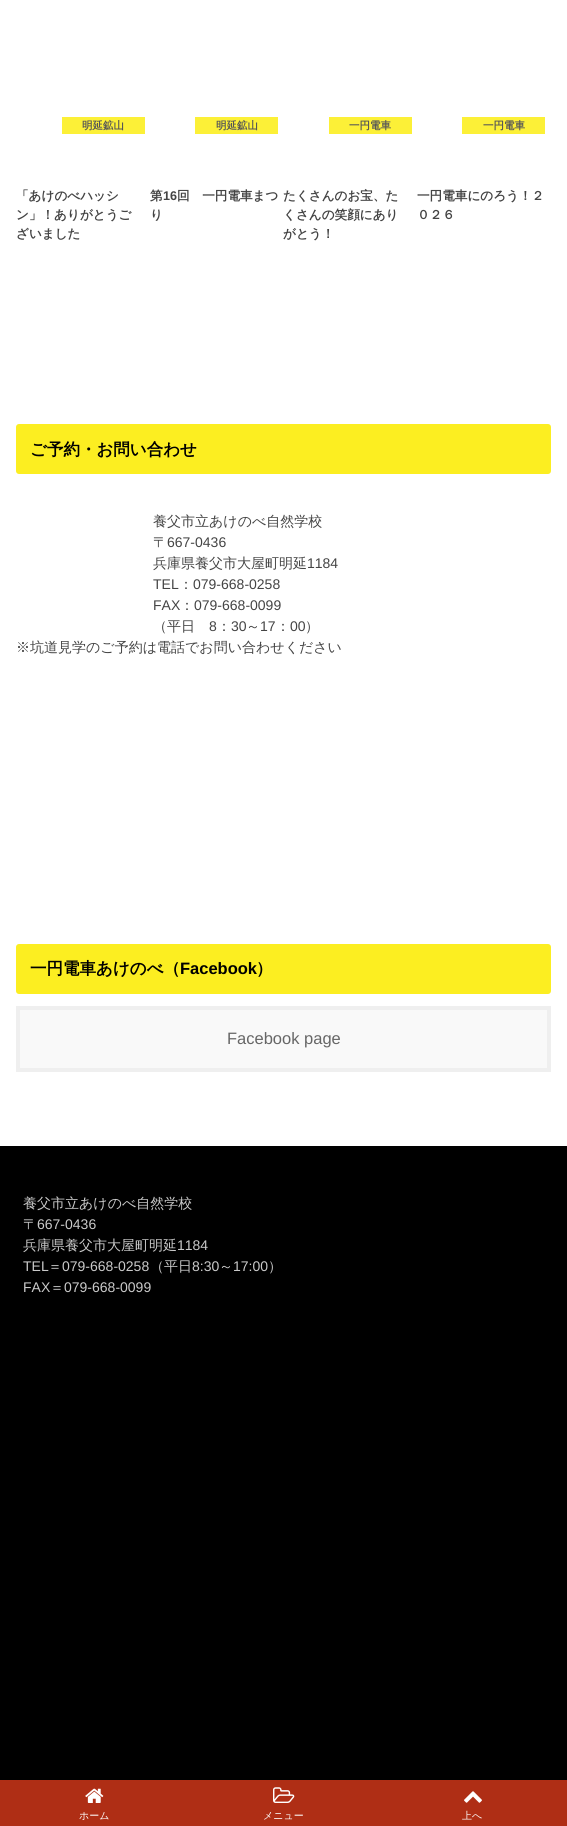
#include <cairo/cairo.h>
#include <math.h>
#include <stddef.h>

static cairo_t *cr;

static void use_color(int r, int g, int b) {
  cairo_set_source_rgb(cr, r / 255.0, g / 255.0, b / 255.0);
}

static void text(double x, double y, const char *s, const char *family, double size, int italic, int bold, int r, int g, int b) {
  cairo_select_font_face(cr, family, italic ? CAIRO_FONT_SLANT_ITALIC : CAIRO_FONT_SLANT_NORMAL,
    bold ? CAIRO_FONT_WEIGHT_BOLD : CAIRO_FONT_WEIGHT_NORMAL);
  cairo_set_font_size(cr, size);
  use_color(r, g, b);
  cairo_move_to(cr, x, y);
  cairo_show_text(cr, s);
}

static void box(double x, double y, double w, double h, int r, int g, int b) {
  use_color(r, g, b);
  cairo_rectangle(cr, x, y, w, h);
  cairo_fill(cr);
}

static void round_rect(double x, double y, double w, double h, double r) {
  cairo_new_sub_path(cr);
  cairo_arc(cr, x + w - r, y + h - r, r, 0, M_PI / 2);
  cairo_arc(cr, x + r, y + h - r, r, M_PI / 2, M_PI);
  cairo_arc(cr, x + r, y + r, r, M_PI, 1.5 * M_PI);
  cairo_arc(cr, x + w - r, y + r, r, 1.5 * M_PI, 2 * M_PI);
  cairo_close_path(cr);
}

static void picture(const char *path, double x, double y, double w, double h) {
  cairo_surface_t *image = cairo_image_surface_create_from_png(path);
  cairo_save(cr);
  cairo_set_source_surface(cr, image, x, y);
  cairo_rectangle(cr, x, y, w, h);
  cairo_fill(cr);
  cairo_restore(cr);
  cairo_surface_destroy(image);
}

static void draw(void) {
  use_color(255, 255, 255);
  cairo_paint(cr);
  box(62, 117, 83, 17, 252, 240, 55);
  box(195, 117, 83, 17, 252, 240, 55);
  box(329, 117, 83, 17, 252, 240, 55);
  box(462, 117, 83, 17, 252, 240, 55);
  use_color(252, 238, 33);
  round_rect(16, 424, 535, 50, 3);
  cairo_fill(cr);
  round_rect(16, 944, 535, 50, 3);
  cairo_fill(cr);
  use_color(249, 249, 249);
  cairo_rectangle(cr, 18, 1008, 531, 62);
  cairo_fill_preserve(cr);
  use_color(239, 239, 239);
  cairo_set_line_width(cr, 4);
  cairo_stroke(cr);
  box(0, 1146, 567, 634, 0, 0, 0);
  box(0, 1780, 567, 46, 175, 46, 21);
  picture("img_01.png", 85, 1788, 19, 15);
  picture("img_02.png", 273, 1787, 22, 16);
  picture("img_03.png", 464, 1791, 18, 12);
  text(82, 129, "明延鉱山", "WenQuanYi Zen Hei", 10.5, 0, 1, 87, 87, 87);
  text(16, 200, "「あけのべハッシ", "WenQuanYi Zen Hei", 12.6, 0, 1, 68, 68, 68);
  text(16, 219, "ン」！ありがとうご", "WenQuanYi Zen Hei", 12.6, 0, 1, 68, 68, 68);
  text(16, 238, "ざいました", "WenQuanYi Zen Hei", 12.6, 0, 1, 68, 68, 68);
  text(216, 129, "明延鉱山", "WenQuanYi Zen Hei", 10.5, 0, 1, 87, 87, 87);
  text(150, 200, "第", "WenQuanYi Zen Hei", 12.6, 0, 1, 68, 68, 68);
  text(163, 200, "16", "Liberation Sans", 12.6, 0, 1, 68, 68, 68);
  text(177, 200, "回　一円電車まつ", "WenQuanYi Zen Hei", 12.6, 0, 1, 68, 68, 68);
  text(150, 219, "り", "WenQuanYi Zen Hei", 12.6, 0, 1, 68, 68, 68);
  text(349, 129, "一円電車", "WenQuanYi Zen Hei", 10.5, 0, 1, 87, 87, 87);
  text(283, 200, "たくさんのお宝、た", "WenQuanYi Zen Hei", 12.6, 0, 1, 68, 68, 68);
  text(283, 219, "くさんの笑顔にあり", "WenQuanYi Zen Hei", 12.6, 0, 1, 68, 68, 68);
  text(283, 238, "がとう！", "WenQuanYi Zen Hei", 12.6, 0, 1, 68, 68, 68);
  text(483, 129, "一円電車", "WenQuanYi Zen Hei", 10.5, 0, 1, 87, 87, 87);
  text(417, 200, "一円電車にのろう！２", "WenQuanYi Zen Hei", 12.6, 0, 1, 68, 68, 68);
  text(417, 219, "０２６", "WenQuanYi Zen Hei", 12.6, 0, 1, 68, 68, 68);
  text(30, 455, "ご予約・お問い合わせ", "WenQuanYi Zen Hei", 16.5, 0, 1, 0, 0, 0);
  text(153, 526, "養父市立あけのべ自然学校", "WenQuanYi Zen Hei Medium", 14, 0, 0, 68, 68, 68);
  text(153, 547, "〒", "WenQuanYi Zen Hei Medium", 14, 0, 0, 68, 68, 68);
  text(167, 547, "667-0436", "Liberation Sans", 14, 0, 0, 68, 68, 68);
  text(153, 568, "兵庫県養父市大屋町明延", "WenQuanYi Zen Hei Medium", 14, 0, 0, 68, 68, 68);
  text(307, 568, "1184", "Liberation Sans", 14, 0, 0, 68, 68, 68);
  text(153, 589, "TEL", "Liberation Sans", 14, 0, 0, 68, 68, 68);
  text(179, 589, "：", "WenQuanYi Zen Hei Medium", 14, 0, 0, 68, 68, 68);
  text(193, 589, "079-668-0258", "Liberation Sans", 14, 0, 0, 68, 68, 68);
  text(153, 610, "FAX", "Liberation Sans", 14, 0, 0, 68, 68, 68);
  text(180, 610, "：", "WenQuanYi Zen Hei Medium", 14, 0, 0, 68, 68, 68);
  text(194, 610, "079-668-0099", "Liberation Sans", 14, 0, 0, 68, 68, 68);
  text(153, 631, "（平日", "WenQuanYi Zen Hei Medium", 14, 0, 0, 68, 68, 68);
  text(209, 631, "8", "Liberation Sans", 14, 0, 0, 68, 68, 68);
  text(217, 631, "：", "WenQuanYi Zen Hei Medium", 14, 0, 0, 68, 68, 68);
  text(231, 631, "30", "Liberation Sans", 14, 0, 0, 68, 68, 68);
  text(246, 631, "～", "WenQuanYi Zen Hei Medium", 14, 0, 0, 68, 68, 68);
  text(260, 631, "17", "Liberation Sans", 14, 0, 0, 68, 68, 68);
  text(276, 631, "：", "WenQuanYi Zen Hei Medium", 14, 0, 0, 68, 68, 68);
  text(290, 631, "00", "Liberation Sans", 14, 0, 0, 68, 68, 68);
  text(305, 631, "）", "WenQuanYi Zen Hei Medium", 14, 0, 0, 68, 68, 68);
  text(16, 652, "※坑道見学のご予約は電話でお問い合わせください", "WenQuanYi Zen Hei Medium", 14, 0, 0, 68, 68, 68);
  text(30, 974, "一円電車あけのべ（", "WenQuanYi Zen Hei", 16.5, 0, 1, 0, 0, 0);
  text(180, 974, "Facebook", "Liberation Sans", 16.5, 0, 1, 0, 0, 0);
  text(256, 974, "）", "WenQuanYi Zen Hei", 16.5, 0, 1, 0, 0, 0);
  text(227, 1044, "Facebook page", "Liberation Sans", 16.5, 0, 0, 102, 102, 102);
  text(23, 1208, "養父市立あけのべ自然学校", "WenQuanYi Zen Hei Medium", 14, 0, 0, 202, 202, 202);
  text(23, 1229, "〒", "WenQuanYi Zen Hei Medium", 14, 0, 0, 202, 202, 202);
  text(37, 1229, "667-0436", "Liberation Sans", 14, 0, 0, 202, 202, 202);
  text(23, 1250, "兵庫県養父市大屋町明延", "WenQuanYi Zen Hei Medium", 14, 0, 0, 202, 202, 202);
  text(177, 1250, "1184", "Liberation Sans", 14, 0, 0, 202, 202, 202);
  text(23, 1271, "TEL", "Liberation Sans", 14, 0, 0, 202, 202, 202);
  text(48, 1271, "＝", "WenQuanYi Zen Hei Medium", 14, 0, 0, 202, 202, 202);
  text(62, 1271, "079-668-0258", "Liberation Sans", 14, 0, 0, 202, 202, 202);
  text(150, 1271, "（平日", "WenQuanYi Zen Hei Medium", 14, 0, 0, 202, 202, 202);
  text(192, 1271, "8:30", "Liberation Sans", 14, 0, 0, 202, 202, 202);
  text(219, 1271, "～", "WenQuanYi Zen Hei Medium", 14, 0, 0, 202, 202, 202);
  text(233, 1271, "17:00", "Liberation Sans", 14, 0, 0, 202, 202, 202);
  text(268, 1271, "）", "WenQuanYi Zen Hei Medium", 14, 0, 0, 202, 202, 202);
  text(23, 1292, "FAX", "Liberation Sans", 14, 0, 0, 202, 202, 202);
  text(50, 1292, "＝", "WenQuanYi Zen Hei Medium", 14, 0, 0, 202, 202, 202);
  text(64, 1292, "079-668-0099", "Liberation Sans", 14, 0, 0, 202, 202, 202);
  text(79, 1819, "ホーム", "WenQuanYi Zen Hei Medium", 10, 0, 0, 255, 255, 255);
  text(263, 1819, "メニュー", "WenQuanYi Zen Hei Medium", 10, 0, 0, 255, 255, 255);
  text(462, 1819, "上へ", "WenQuanYi Zen Hei Medium", 10, 0, 0, 255, 255, 255);
}

int main(void) {
  cairo_surface_t *surface = cairo_image_surface_create(CAIRO_FORMAT_RGB24, 567, 1826);
  cr = cairo_create(surface);
  cairo_font_options_t *options = cairo_font_options_create();
  cairo_font_options_set_hint_metrics(options, CAIRO_HINT_METRICS_OFF);
  cairo_font_options_set_hint_style(options, CAIRO_HINT_STYLE_NONE);
  cairo_set_font_options(cr, options);
  cairo_set_miter_limit(cr, 4);
  draw();
  cairo_surface_write_to_png(surface, "out.png");
  cairo_font_options_destroy(options);
  cairo_destroy(cr);
  cairo_surface_destroy(surface);
  return 0;
}
